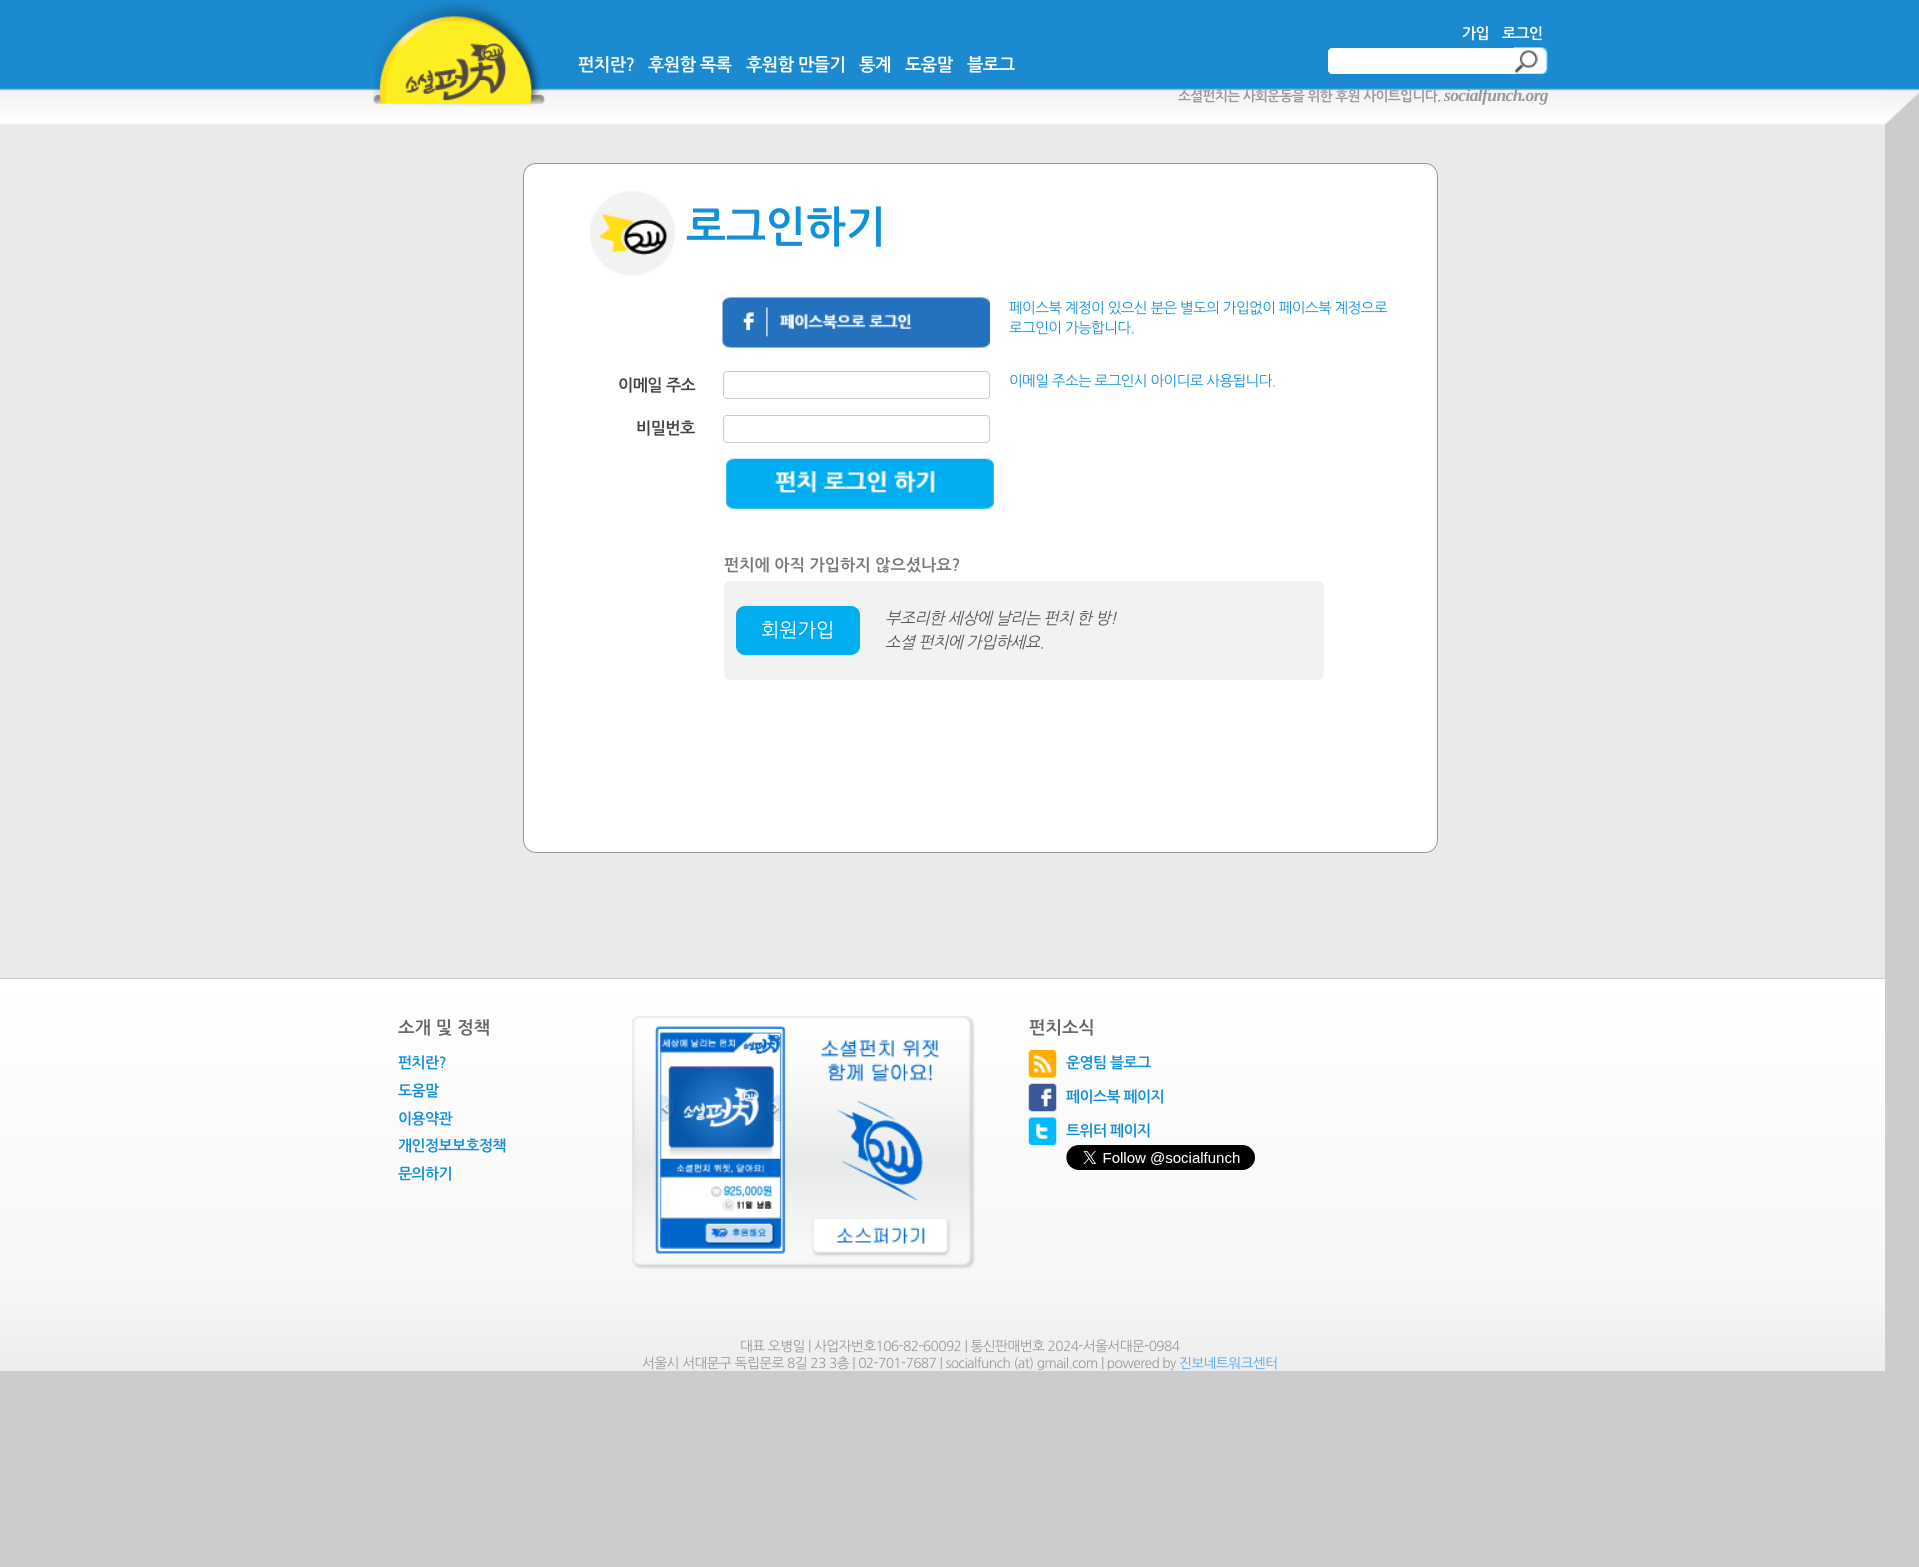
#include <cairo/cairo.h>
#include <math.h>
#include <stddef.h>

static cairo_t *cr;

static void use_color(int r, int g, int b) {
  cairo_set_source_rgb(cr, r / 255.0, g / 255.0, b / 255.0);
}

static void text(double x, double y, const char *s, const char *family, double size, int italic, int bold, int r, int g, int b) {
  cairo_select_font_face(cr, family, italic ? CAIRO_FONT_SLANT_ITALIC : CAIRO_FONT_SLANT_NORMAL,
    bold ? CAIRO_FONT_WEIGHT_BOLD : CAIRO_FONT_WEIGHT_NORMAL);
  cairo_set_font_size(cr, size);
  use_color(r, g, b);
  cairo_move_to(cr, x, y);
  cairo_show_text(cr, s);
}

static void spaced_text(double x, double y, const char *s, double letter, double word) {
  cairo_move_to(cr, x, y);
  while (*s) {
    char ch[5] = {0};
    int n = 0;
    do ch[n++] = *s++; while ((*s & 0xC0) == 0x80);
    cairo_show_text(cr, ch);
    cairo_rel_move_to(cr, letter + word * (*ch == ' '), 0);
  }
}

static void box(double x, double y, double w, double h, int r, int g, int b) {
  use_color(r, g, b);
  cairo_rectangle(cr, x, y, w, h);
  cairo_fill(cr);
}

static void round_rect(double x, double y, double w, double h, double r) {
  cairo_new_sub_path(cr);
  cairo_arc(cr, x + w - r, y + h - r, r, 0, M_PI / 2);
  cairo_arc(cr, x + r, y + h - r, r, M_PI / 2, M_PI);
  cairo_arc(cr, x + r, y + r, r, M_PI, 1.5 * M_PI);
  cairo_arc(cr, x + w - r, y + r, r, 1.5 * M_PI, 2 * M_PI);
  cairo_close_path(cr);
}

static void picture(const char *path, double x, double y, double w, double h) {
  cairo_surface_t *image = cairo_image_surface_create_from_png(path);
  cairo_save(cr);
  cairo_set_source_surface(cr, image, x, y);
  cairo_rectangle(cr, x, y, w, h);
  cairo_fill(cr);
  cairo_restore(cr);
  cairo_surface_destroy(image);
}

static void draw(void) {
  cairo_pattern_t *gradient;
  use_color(204, 204, 204);
  cairo_paint(cr);
  picture("img_01.png", 1885, 0, 34, 125);
  box(0, 125, 1885, 853, 234, 234, 234);
  picture("img_02.png", 0, 0, 1885, 125);
  picture("img_03.png", 372, 1, 175, 105);
  picture("img_04.png", 1513, 47, 35, 27);
  use_color(255, 255, 255);
  cairo_new_path(cr);
  cairo_move_to(cr, 1332, 48);
  cairo_line_to(cr, 1515, 48);
  cairo_line_to(cr, 1515, 74);
  cairo_line_to(cr, 1332, 74);
  cairo_curve_to(cr, 1330, 74, 1328, 72, 1328, 70);
  cairo_line_to(cr, 1328, 52);
  cairo_curve_to(cr, 1328, 50, 1330, 48, 1332, 48);
  cairo_close_path(cr);
  cairo_fill(cr);
  round_rect(523.5, 163.5, 914, 689, 12.5);
  cairo_fill_preserve(cr);
  use_color(153, 153, 153);
  cairo_set_line_width(cr, 1);
  cairo_stroke(cr);
  picture("img_05.png", 590, 191, 85, 85);
  picture("img_06.png", 722, 297, 268, 51);
  round_rect(723.5, 371.5, 266, 27, 3.5);
  use_color(204, 204, 204);
  cairo_stroke(cr);
  round_rect(723.5, 415.5, 266, 27, 3.5);
  cairo_stroke(cr);
  picture("img_07.png", 726, 458, 268, 51);
  use_color(242, 242, 242);
  round_rect(724, 581, 600, 99, 6);
  cairo_fill(cr);
  use_color(0, 174, 240);
  round_rect(736, 606, 124, 49, 9);
  cairo_fill(cr);
  gradient = cairo_pattern_create_linear(943, 979, 943, 1371);
  cairo_pattern_add_color_stop_rgba(gradient, 0, 1, 1, 1, 1);
  cairo_pattern_add_color_stop_rgba(gradient, 0.81, 0.965, 0.965, 0.965, 1);
  cairo_pattern_add_color_stop_rgba(gradient, 1, 0.929, 0.929, 0.929, 1);
  cairo_set_source(cr, gradient);
  cairo_pattern_destroy(gradient);
  cairo_rectangle(cr, 0, 979, 1885, 392);
  cairo_fill(cr);
  picture("img_08.png", 632, 1016, 343, 253);
  picture("img_09.png", 1028, 1050, 29, 28);
  picture("img_10.png", 1028, 1083, 29, 29);
  picture("img_11.png", 1028, 1117, 29, 28);
  picture("img_12.png", 1066, 1145, 189, 25);
  cairo_select_font_face(cr, "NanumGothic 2", CAIRO_FONT_SLANT_NORMAL, CAIRO_FONT_WEIGHT_BOLD);
  cairo_set_font_size(cr, 17.5);
  use_color(255, 255, 255);
  spaced_text(578, 70, "펀치란?", -0.62, 0);
  spaced_text(648, 70, "후원함 목록", -0.62, 0);
  spaced_text(746, 70, "후원함 만들기", -0.62, 0);
  spaced_text(859, 70, "통계", -0.62, 0);
  spaced_text(905, 70, "도움말", -0.62, 0);
  spaced_text(967, 70, "블로그", -0.62, 0);
  cairo_set_font_size(cr, 15);
  spaced_text(1462, 38, "가입", -0.62, 0);
  spaced_text(1502, 38, "로그인", -0.62, 0);
  cairo_select_font_face(cr, "NanumGothic", CAIRO_FONT_SLANT_NORMAL, CAIRO_FONT_WEIGHT_BOLD);
  cairo_set_font_size(cr, 13.75);
  use_color(153, 153, 153);
  spaced_text(1178, 101, "소셜펀치는 사회운동을 위한 후원 사이트입니다.", -0.62, 0);
  cairo_select_font_face(cr, "Liberation Serif", CAIRO_FONT_SLANT_ITALIC, CAIRO_FONT_WEIGHT_BOLD);
  cairo_set_font_size(cr, 17.5);
  spaced_text(1444, 101, "socialfunch.org", -0.62, 0);
  text(686, 240, "로그인하기", "NanumGothic 2", 42.5, 0, 1, 20, 144, 217);
  cairo_select_font_face(cr, "NanumGothic", CAIRO_FONT_SLANT_NORMAL, CAIRO_FONT_WEIGHT_NORMAL);
  cairo_set_font_size(cr, 14.6);
  spaced_text(1009, 313, "페이스북 계정이 있으신 분은 별도의 가입없이 페이스북 계정으로", -0.62, 0);
  spaced_text(1009, 333, "로그인이 가능합니다.", -0.62, 0);
  cairo_select_font_face(cr, "NanumGothic", CAIRO_FONT_SLANT_NORMAL, CAIRO_FONT_WEIGHT_BOLD);
  cairo_set_font_size(cr, 16.25);
  use_color(68, 68, 68);
  spaced_text(618, 391, "이메일 주소", -0.62, 0);
  cairo_select_font_face(cr, "NanumGothic", CAIRO_FONT_SLANT_NORMAL, CAIRO_FONT_WEIGHT_NORMAL);
  cairo_set_font_size(cr, 14.6);
  use_color(20, 144, 217);
  spaced_text(1009, 386, "이메일 주소는 로그인시 아이디로 사용됩니다.", -0.62, 0);
  cairo_select_font_face(cr, "NanumGothic", CAIRO_FONT_SLANT_NORMAL, CAIRO_FONT_WEIGHT_BOLD);
  cairo_set_font_size(cr, 16.25);
  use_color(68, 68, 68);
  spaced_text(636, 434, "비밀번호", -0.62, 0);
  text(724, 570, "펀치에 아직 가입하지 않으셨나요?", "NanumGothic 2", 16.25, 0, 1, 120, 120, 120);
  text(761, 637, "회원가입", "NanumGothic", 19.5, 0, 0, 255, 255, 255);
  cairo_select_font_face(cr, "NanumGothic", CAIRO_FONT_SLANT_ITALIC, CAIRO_FONT_WEIGHT_NORMAL);
  cairo_set_font_size(cr, 16.25);
  use_color(85, 85, 85);
  spaced_text(885, 624, "부조리한 세상에 날리는 펀치 한 방!", -0.62, 0);
  spaced_text(885, 648, "소셜 펀치에 가입하세요.", -0.62, 0);
  text(398, 1033, "소개 및 정책", "NanumGothic 2", 17.5, 0, 1, 102, 102, 102);
  cairo_select_font_face(cr, "NanumGothic", CAIRO_FONT_SLANT_NORMAL, CAIRO_FONT_WEIGHT_BOLD);
  cairo_set_font_size(cr, 15);
  use_color(20, 144, 217);
  spaced_text(398, 1068, "펀치란?", -0.62, 0);
  spaced_text(398, 1096, "도움말", -0.62, 0);
  spaced_text(398, 1124, "이용약관", -0.62, 0);
  spaced_text(398, 1151, "개인정보보호정책", -0.62, 0);
  spaced_text(398, 1179, "문의하기", -0.62, 0);
  text(1029, 1033, "펀치소식", "NanumGothic 2", 17.5, 0, 1, 102, 102, 102);
  cairo_select_font_face(cr, "NanumGothic", CAIRO_FONT_SLANT_NORMAL, CAIRO_FONT_WEIGHT_BOLD);
  cairo_set_font_size(cr, 15);
  use_color(20, 144, 217);
  spaced_text(1066, 1068, "운영팀 블로그", -0.62, 0);
  spaced_text(1066, 1102, "페이스북 페이지", -0.62, 0);
  spaced_text(1066, 1136, "트위터 페이지", -0.62, 0);
  cairo_select_font_face(cr, "NanumGothic", CAIRO_FONT_SLANT_NORMAL, CAIRO_FONT_WEIGHT_NORMAL);
  cairo_set_font_size(cr, 13.75);
  use_color(153, 153, 153);
  spaced_text(740, 1351, "대표 오병일 | 사업자번호106-82-60092 | 통신판매번호 2024-서울서대문-0984", -0.62, 0);
  spaced_text(642, 1368, "서울시 서대문구 독립문로 8길 23 3층 | 02-701-7687 | socialfunch (at) gmail.com | powered by", -0.62, 0);
  use_color(85, 164, 242);
  spaced_text(1179, 1368, "진보네트워크센터", -0.62, 0);
}

int main(void) {
  cairo_surface_t *surface = cairo_image_surface_create(CAIRO_FORMAT_RGB24, 1919, 1567);
  cr = cairo_create(surface);
  cairo_font_options_t *options = cairo_font_options_create();
  cairo_font_options_set_hint_metrics(options, CAIRO_HINT_METRICS_OFF);
  cairo_font_options_set_hint_style(options, CAIRO_HINT_STYLE_NONE);
  cairo_set_font_options(cr, options);
  cairo_set_miter_limit(cr, 4);
  draw();
  cairo_surface_write_to_png(surface, "out.png");
  cairo_font_options_destroy(options);
  cairo_destroy(cr);
  cairo_surface_destroy(surface);
  return 0;
}
